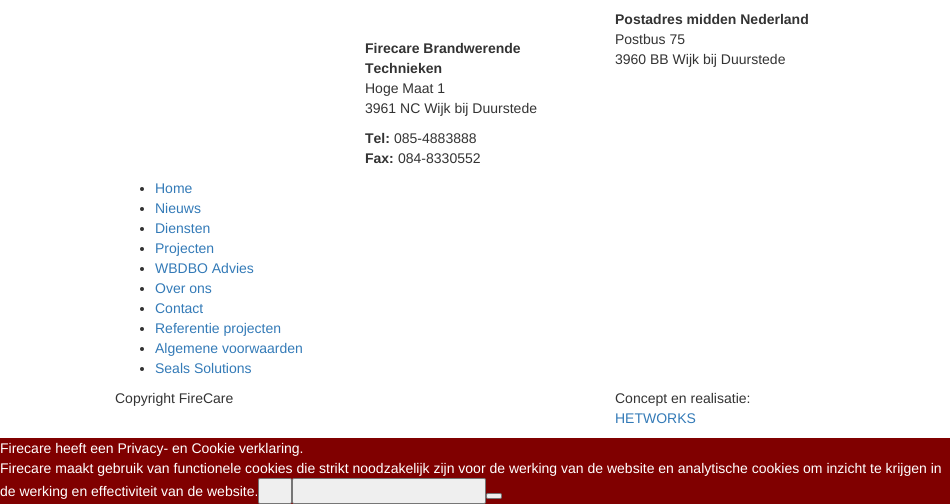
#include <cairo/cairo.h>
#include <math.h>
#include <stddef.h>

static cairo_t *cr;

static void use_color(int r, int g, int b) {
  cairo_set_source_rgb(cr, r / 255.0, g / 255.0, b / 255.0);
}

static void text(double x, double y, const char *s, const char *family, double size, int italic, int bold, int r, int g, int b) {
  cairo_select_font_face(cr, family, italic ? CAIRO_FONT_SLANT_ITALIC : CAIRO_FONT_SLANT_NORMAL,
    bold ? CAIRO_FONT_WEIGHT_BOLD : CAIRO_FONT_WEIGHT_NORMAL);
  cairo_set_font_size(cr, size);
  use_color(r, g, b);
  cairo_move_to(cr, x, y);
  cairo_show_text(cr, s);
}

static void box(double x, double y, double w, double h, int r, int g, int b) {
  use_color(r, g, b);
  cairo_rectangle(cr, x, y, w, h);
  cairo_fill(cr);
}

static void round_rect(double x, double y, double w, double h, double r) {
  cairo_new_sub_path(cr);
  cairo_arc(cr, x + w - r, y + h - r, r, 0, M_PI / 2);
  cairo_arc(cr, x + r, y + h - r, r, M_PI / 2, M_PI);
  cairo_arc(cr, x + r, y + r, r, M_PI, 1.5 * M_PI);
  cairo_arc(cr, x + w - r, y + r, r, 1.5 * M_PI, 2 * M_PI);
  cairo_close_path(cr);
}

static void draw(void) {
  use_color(255, 255, 255);
  cairo_paint(cr);
  use_color(51, 51, 51);
  cairo_arc(cr, 142, 189, 2, 0, 2 * M_PI);
  cairo_fill(cr);
  cairo_arc(cr, 142, 209, 2, 0, 2 * M_PI);
  cairo_fill(cr);
  cairo_arc(cr, 142, 229, 2, 0, 2 * M_PI);
  cairo_fill(cr);
  cairo_arc(cr, 142, 249, 2, 0, 2 * M_PI);
  cairo_fill(cr);
  cairo_arc(cr, 142, 269, 2, 0, 2 * M_PI);
  cairo_fill(cr);
  cairo_arc(cr, 142, 289, 2, 0, 2 * M_PI);
  cairo_fill(cr);
  cairo_arc(cr, 142, 309, 2, 0, 2 * M_PI);
  cairo_fill(cr);
  cairo_arc(cr, 142, 329, 2, 0, 2 * M_PI);
  cairo_fill(cr);
  cairo_arc(cr, 142, 349, 2, 0, 2 * M_PI);
  cairo_fill(cr);
  cairo_arc(cr, 142, 369, 2, 0, 2 * M_PI);
  cairo_fill(cr);
  box(0, 438, 950, 66, 128, 0, 0);
  use_color(239, 239, 239);
  round_rect(258.5, 478.5, 33, 25, 1.5);
  cairo_fill_preserve(cr);
  use_color(118, 118, 118);
  cairo_set_line_width(cr, 1);
  cairo_stroke(cr);
  use_color(239, 239, 239);
  round_rect(292.5, 478.5, 193, 25, 1.5);
  cairo_fill_preserve(cr);
  use_color(118, 118, 118);
  cairo_stroke(cr);
  use_color(239, 239, 239);
  round_rect(486.5, 493.5, 15, 5, 1.5);
  cairo_fill_preserve(cr);
  use_color(118, 118, 118);
  cairo_stroke(cr);
  text(365, 53, "Firecare Brandwerende", "Liberation Sans", 14, 0, 1, 51, 51, 51);
  text(365, 73, "Technieken", "Liberation Sans", 14, 0, 1, 51, 51, 51);
  text(365, 93, "Hoge Maat 1", "Liberation Sans", 14, 0, 0, 51, 51, 51);
  text(365, 113, "3961 NC Wijk bij Duurstede", "Liberation Sans", 14, 0, 0, 51, 51, 51);
  text(365, 143, "Tel:", "Liberation Sans", 14, 0, 1, 51, 51, 51);
  text(394, 143, "085-4883888", "Liberation Sans", 14, 0, 0, 51, 51, 51);
  text(365, 163, "Fax:", "Liberation Sans", 14, 0, 1, 51, 51, 51);
  text(398, 163, "084-8330552", "Liberation Sans", 14, 0, 0, 51, 51, 51);
  text(615, 24, "Postadres midden Nederland", "Liberation Sans", 14, 0, 1, 51, 51, 51);
  text(615, 44, "Postbus 75", "Liberation Sans", 14, 0, 0, 51, 51, 51);
  text(615, 64, "3960 BB Wijk bij Duurstede", "Liberation Sans", 14, 0, 0, 51, 51, 51);
  text(155, 193, "Home", "Liberation Sans", 14, 0, 0, 51, 122, 183);
  text(155, 213, "Nieuws", "Liberation Sans", 14, 0, 0, 51, 122, 183);
  text(155, 233, "Diensten", "Liberation Sans", 14, 0, 0, 51, 122, 183);
  text(155, 253, "Projecten", "Liberation Sans", 14, 0, 0, 51, 122, 183);
  text(155, 273, "WBDBO Advies", "Liberation Sans", 14, 0, 0, 51, 122, 183);
  text(155, 293, "Over ons", "Liberation Sans", 14, 0, 0, 51, 122, 183);
  text(155, 313, "Contact", "Liberation Sans", 14, 0, 0, 51, 122, 183);
  text(155, 333, "Referentie projecten", "Liberation Sans", 14, 0, 0, 51, 122, 183);
  text(155, 353, "Algemene voorwaarden", "Liberation Sans", 14, 0, 0, 51, 122, 183);
  text(155, 373, "Seals Solutions", "Liberation Sans", 14, 0, 0, 51, 122, 183);
  text(115, 403, "Copyright FireCare", "Liberation Sans", 14, 0, 0, 51, 51, 51);
  text(615, 403, "Concept en realisatie:", "Liberation Sans", 14, 0, 0, 51, 51, 51);
  text(615, 423, "HETWORKS", "Liberation Sans", 14, 0, 0, 51, 122, 183);
  text(0, 453, "Firecare heeft een Privacy- en Cookie verklaring.", "Liberation Sans", 14, 0, 0, 255, 255, 255);
  text(0, 473, "Firecare maakt gebruik van functionele cookies die strikt noodzakelijk zijn voor de werking van de website en analytische cookies om inzicht te krijgen in", "Liberation Sans", 14, 0, 0, 255, 255, 255);
  text(0, 496, "de werking en effectiviteit van de website.", "Liberation Sans", 14, 0, 0, 255, 255, 255);
}

int main(void) {
  cairo_surface_t *surface = cairo_image_surface_create(CAIRO_FORMAT_RGB24, 950, 504);
  cr = cairo_create(surface);
  cairo_font_options_t *options = cairo_font_options_create();
  cairo_font_options_set_hint_metrics(options, CAIRO_HINT_METRICS_OFF);
  cairo_font_options_set_hint_style(options, CAIRO_HINT_STYLE_NONE);
  cairo_set_font_options(cr, options);
  cairo_set_miter_limit(cr, 4);
  draw();
  cairo_surface_write_to_png(surface, "out.png");
  cairo_font_options_destroy(options);
  cairo_destroy(cr);
  cairo_surface_destroy(surface);
  return 0;
}
